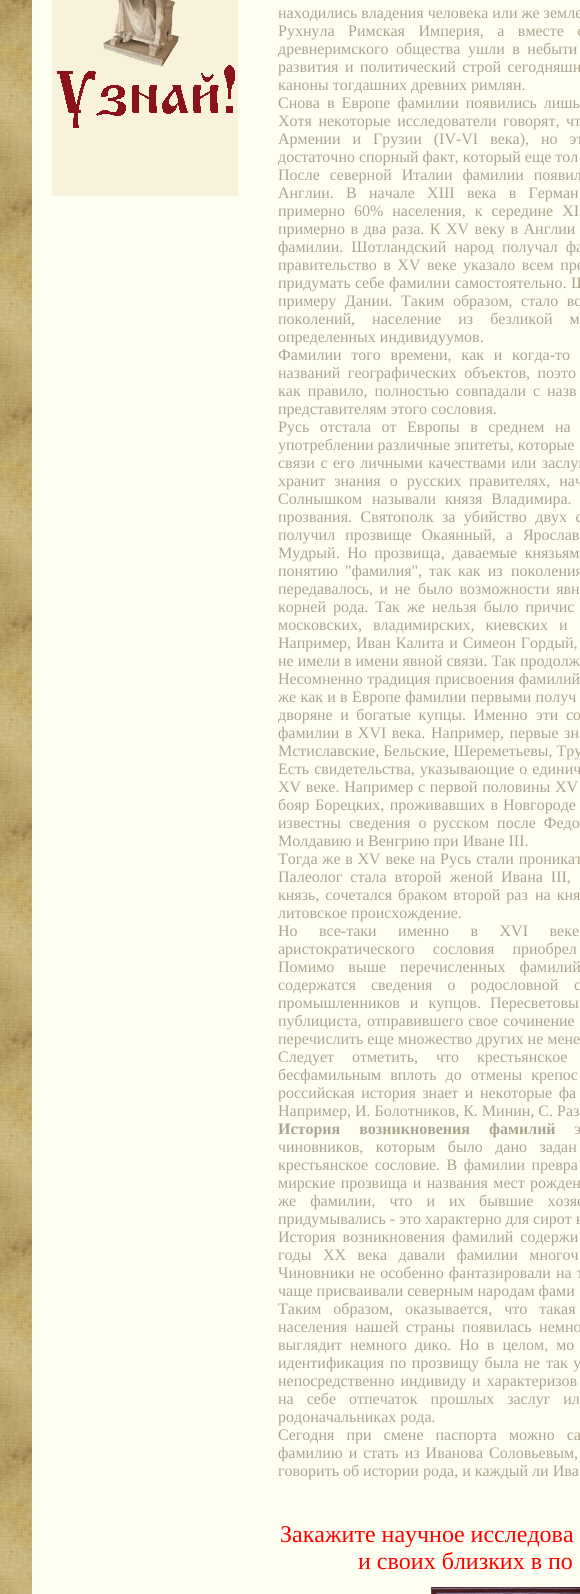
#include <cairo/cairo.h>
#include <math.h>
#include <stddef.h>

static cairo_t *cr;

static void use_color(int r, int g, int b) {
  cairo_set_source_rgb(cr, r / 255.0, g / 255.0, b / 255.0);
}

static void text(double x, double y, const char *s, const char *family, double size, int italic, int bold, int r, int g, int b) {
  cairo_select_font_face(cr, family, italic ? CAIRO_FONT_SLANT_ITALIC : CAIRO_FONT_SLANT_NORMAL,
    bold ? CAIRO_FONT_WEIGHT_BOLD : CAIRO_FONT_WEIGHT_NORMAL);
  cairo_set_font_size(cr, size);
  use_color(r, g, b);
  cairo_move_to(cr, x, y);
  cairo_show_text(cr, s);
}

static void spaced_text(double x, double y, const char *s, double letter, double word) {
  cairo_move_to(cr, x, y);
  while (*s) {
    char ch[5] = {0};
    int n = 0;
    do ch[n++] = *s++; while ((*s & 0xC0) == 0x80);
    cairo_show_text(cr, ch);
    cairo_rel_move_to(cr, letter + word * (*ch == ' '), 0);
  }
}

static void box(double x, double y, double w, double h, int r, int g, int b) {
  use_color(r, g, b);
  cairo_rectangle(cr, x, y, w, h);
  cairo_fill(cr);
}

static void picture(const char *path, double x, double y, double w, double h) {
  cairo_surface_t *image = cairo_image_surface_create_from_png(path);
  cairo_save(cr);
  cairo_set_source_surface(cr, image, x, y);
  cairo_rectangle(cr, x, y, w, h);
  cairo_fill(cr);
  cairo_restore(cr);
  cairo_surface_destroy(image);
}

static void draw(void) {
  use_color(255, 255, 255);
  cairo_paint(cr);
  picture("img_01.png", 0, 0, 32, 1594);
  box(32, 0, 548, 1594, 255, 255, 241);
  picture("img_02.png", 52, 0, 186, 196);
  picture("img_03.png", 431, 1587, 149, 7);
  text(278, 18, "находились владения человека или же земле", "Liberation Serif", 16, 0, 0, 171, 164, 141);
  spaced_text(278, 36, "Рухнула Римская Империя, а вместе с", 0, 9.5);
  spaced_text(278, 54, "древнеримского общества ушли в небыти", 0, 3.5);
  spaced_text(278, 72, "развития и политический строй сегодняшн", 0, 2.5);
  text(278, 90, "каноны тогдашних древних римлян.", "Liberation Serif", 16, 0, 0, 171, 164, 141);
  spaced_text(278, 108, "Снова в Европе фамилии появились лишь", 0, 3);
  spaced_text(278, 126, "Хотя некоторые исследователи говорят, чт", 0, 2.5);
  spaced_text(278, 144, "Армении и Грузии (IV-VI века), но эт", 0, 8);
  text(278, 162, "достаточно спорный факт, который еще тол", "Liberation Serif", 16, 0, 0, 171, 164, 141);
  spaced_text(278, 180, "После северной Италии фамилии появил", 0, 6);
  spaced_text(278, 198, "Англии. В начале XIII века в Герман", 0, 8.25);
  spaced_text(278, 216, "примерно 60% населения, к середине XI", 0, 5);
  spaced_text(278, 234, "примерно в два раза. К XV веку в Англии", 0, 1.5);
  spaced_text(278, 252, "фамилии. Шотландский народ", 0, 4);
  spaced_text(502, 252, "получал фа", 0, 4);
  spaced_text(278, 270, "правительство в XV", 0, 2.5);
  spaced_text(427, 270, "веке указало всем пре", 0, 2.5);
  text(278, 288, "придумать", "Liberation Serif", 16, 0, 0, 171, 164, 141);
  spaced_text(355, 288, "себе фамилии самостоятельно. Ш", 0, 0.5);
  spaced_text(278, 306, "примеру Дании. Таким образом, стало во", 0, 4.5);
  spaced_text(278, 324, "поколений, население из безликой м", 0, 13);
  text(278, 342, "определенных индивидуумов.", "Liberation Serif", 16, 0, 0, 171, 164, 141);
  spaced_text(278, 360, "Фамилии того времени, как и когда-то", 0, 5.75);
  spaced_text(278, 378, "названий географических объектов, поэто", 0, 3.5);
  spaced_text(278, 396, "как правило, полностью совпадали с", 0, 3);
  spaced_text(547, 396, "назв", 0, 3);
  text(278, 414, "представителям этого сословия.", "Liberation Serif", 16, 0, 0, 171, 164, 141);
  spaced_text(278, 432, "Русь отстала от Европы в среднем на", 0, 6.5);
  text(278, 450, "употреблении различные эпитеты, которые", "Liberation Serif", 16, 0, 0, 171, 164, 141);
  spaced_text(278, 468, "связи с его личными качествами или заслуг", 0, 1.5);
  spaced_text(278, 486, "хранит знания о русских", 0, 5);
  spaced_text(469, 486, "правителях, нач", 0, 5);
  text(278, 504, "Солнышком", "Liberation Serif", 16, 0, 0, 171, 164, 141);
  spaced_text(372, 504, "называли князя Владимира.", 0, 5);
  spaced_text(278, 522, "прозвания. Святополк за убийство двух с", 0, 4.5);
  spaced_text(278, 540, "получил прозвище Окаянный, а Ярослав", 0, 6);
  spaced_text(278, 558, "Мудрый. Но прозвища, даваемые князьям", 0, 3.5);
  spaced_text(278, 576, "понятию \"фамилия\", так как из", 0, 3);
  spaced_text(511, 576, "поколения", 0, 3);
  spaced_text(278, 594, "передавалось, и не", 0, 2.5);
  spaced_text(418, 594, "было возможности явн", 0, 2.5);
  text(278, 612, "корней", "Liberation Serif", 16, 0, 0, 171, 164, 141);
  spaced_text(333, 612, "рода. Так же нельзя было причис", 0, 3);
  spaced_text(278, 630, "московских, владимирских, киевских и", 0, 7);
  spaced_text(278, 648, "Например, Иван Калита и Симеон Гордый,", 0, 1);
  text(278, 666, "не имели в имени явной связи. Так продолж", "Liberation Serif", 16, 0, 0, 171, 164, 141);
  spaced_text(278, 684, "Несомненно традиция присвоения фамилий", 0, 0.5);
  spaced_text(278, 702, "же как и в Европе фамилии первыми получ", 0, 0.25);
  spaced_text(278, 720, "дворяне и богатые купцы. Именно", 0, 3.5);
  spaced_text(536, 720, "эти со", 0, 3.5);
  spaced_text(278, 738, "фамилии в XVI века.", 0, 1.5);
  spaced_text(431, 738, "Например, первые зн", 0, 1.5);
  text(278, 756, "Мстиславские, Бельские, Шереметьевы, Тру", "Liberation Serif", 16, 0, 0, 171, 164, 141);
  spaced_text(278, 774, "Есть свидетельства, указывающие о единич", 0, 1);
  spaced_text(278, 792, "XV веке. Например с первой половины XV", 0, 0.75);
  spaced_text(278, 810, "бояр Борецких, проживавших в", 0, 1.5);
  spaced_text(503, 810, "Новгороде", 0, 1);
  spaced_text(278, 828, "известны сведения о", 0, 4);
  spaced_text(433, 828, "русском после Федо", 0, 4);
  text(278, 846, "Молдавию и Венгрию при Иване III.", "Liberation Serif", 16, 0, 0, 171, 164, 141);
  spaced_text(278, 864, "Тогда же в XV веке на Русь стали проникат", 0, 0.75);
  spaced_text(278, 882, "Палеолог стала второй женой Ивана III,", 0, 4);
  spaced_text(278, 900, "князь, сочетался браком второй раз", 0, 2);
  spaced_text(535, 900, "на кня", 0, 2);
  text(278, 918, "литовское происхождение.", "Liberation Serif", 16, 0, 0, 171, 164, 141);
  spaced_text(278, 936, "Но все-таки именно в XVI веке", 0, 17.5);
  spaced_text(278, 954, "аристократического сословия приобрел", 0, 14);
  spaced_text(278, 972, "Помимо выше перечисленных фамилий", 0, 10);
  spaced_text(278, 990, "содержатся сведения о родословной", 0, 11);
  spaced_text(574, 990, "с", 0, 11);
  spaced_text(278, 1008, "промышленников и купцов.", 0, 6);
  spaced_text(490, 1008, "Пересветовы", 0, 6);
  text(278, 1026, "публициста,", "Liberation Serif", 16, 0, 0, 171, 164, 141);
  spaced_text(367, 1026, "отправившего свое сочинение", 0, 1);
  text(278, 1044, "перечислить еще множество других не мене", "Liberation Serif", 16, 0, 0, 171, 164, 141);
  spaced_text(278, 1062, "Следует отметить, что крестьянское", 0, 14);
  spaced_text(278, 1080, "бесфамильным вплоть до отмены крепос", 0, 5);
  spaced_text(278, 1098, "российская история знает и некоторые фа", 0, 2.5);
  text(278, 1116, "Например, И. Болотников, К. Минин, С. Раз", "Liberation Serif", 16, 0, 0, 171, 164, 141);
  cairo_select_font_face(cr, "Liberation Serif", CAIRO_FONT_SLANT_NORMAL, CAIRO_FONT_WEIGHT_BOLD);
  spaced_text(278, 1134, "История возникновения фамилий", 0, 15);
  cairo_select_font_face(cr, "Liberation Serif", CAIRO_FONT_SLANT_NORMAL, CAIRO_FONT_WEIGHT_NORMAL);
  spaced_text(574, 1134, "э", 0, 15);
  spaced_text(278, 1152, "чиновников, которым было дано задан", 0, 8.5);
  spaced_text(278, 1170, "крестьянское сословие. В фамилии превра", 0, 2.5);
  spaced_text(278, 1188, "мирские прозвища и названия мест", 0, 1.5);
  spaced_text(530, 1188, "рожден", 0, 1.5);
  spaced_text(278, 1206, "же фамилии, что и их", 0, 10);
  spaced_text(479, 1206, "бывшие хозяе", 0, 10);
  text(278, 1224, "придумывались - это характерно для сирот в", "Liberation Serif", 16, 0, 0, 171, 164, 141);
  spaced_text(278, 1242, "История возникновения фамилий содержи", 0, 3);
  spaced_text(278, 1260, "годы XX века давали фамилии многоч", 0, 7.5);
  spaced_text(278, 1278, "Чиновники не особенно фантазировали на т", 0, 1);
  text(278, 1296, "чаще присваивали северным народам фами", "Liberation Serif", 16, 0, 0, 171, 164, 141);
  spaced_text(278, 1314, "Таким образом, оказывается, что такая", 0, 8);
  spaced_text(278, 1332, "населения нашей страны появилась немно", 0, 3.5);
  spaced_text(278, 1350, "выглядит немного дико. Но в целом, мо", 0, 4);
  spaced_text(278, 1368, "идентификация по прозвищу была не", 0, 1.5);
  spaced_text(546, 1368, "так у", 0, 1.5);
  spaced_text(278, 1386, "непосредственно индивиду", 0, 2);
  spaced_text(472, 1386, "и характеризов", 0, 2);
  spaced_text(278, 1404, "на себе", 0, 9);
  spaced_text(349, 1404, "отпечаток прошлых заслуг ил", 0, 9);
  text(278, 1422, "родоначальниках рода.", "Liberation Serif", 16, 0, 0, 171, 164, 141);
  spaced_text(278, 1440, "Сегодня при смене паспорта можно са", 0, 8);
  spaced_text(278, 1458, "фамилию и стать из Иванова Соловьевым,", 0, 2);
  text(278, 1476, "говорить об истории рода, и каждый ли Ива", "Liberation Serif", 16, 0, 0, 171, 164, 141);
  text(280, 1542, "Закажите научное исследова", "Liberation Serif", 24, 0, 0, 255, 0, 0);
  text(358, 1569, "и своих близких в по", "Liberation Serif", 24, 0, 0, 255, 0, 0);
}

int main(void) {
  cairo_surface_t *surface = cairo_image_surface_create(CAIRO_FORMAT_RGB24, 580, 1594);
  cr = cairo_create(surface);
  cairo_font_options_t *options = cairo_font_options_create();
  cairo_font_options_set_hint_metrics(options, CAIRO_HINT_METRICS_OFF);
  cairo_font_options_set_hint_style(options, CAIRO_HINT_STYLE_NONE);
  cairo_set_font_options(cr, options);
  cairo_set_miter_limit(cr, 4);
  draw();
  cairo_surface_write_to_png(surface, "out.png");
  cairo_font_options_destroy(options);
  cairo_destroy(cr);
  cairo_surface_destroy(surface);
  return 0;
}
